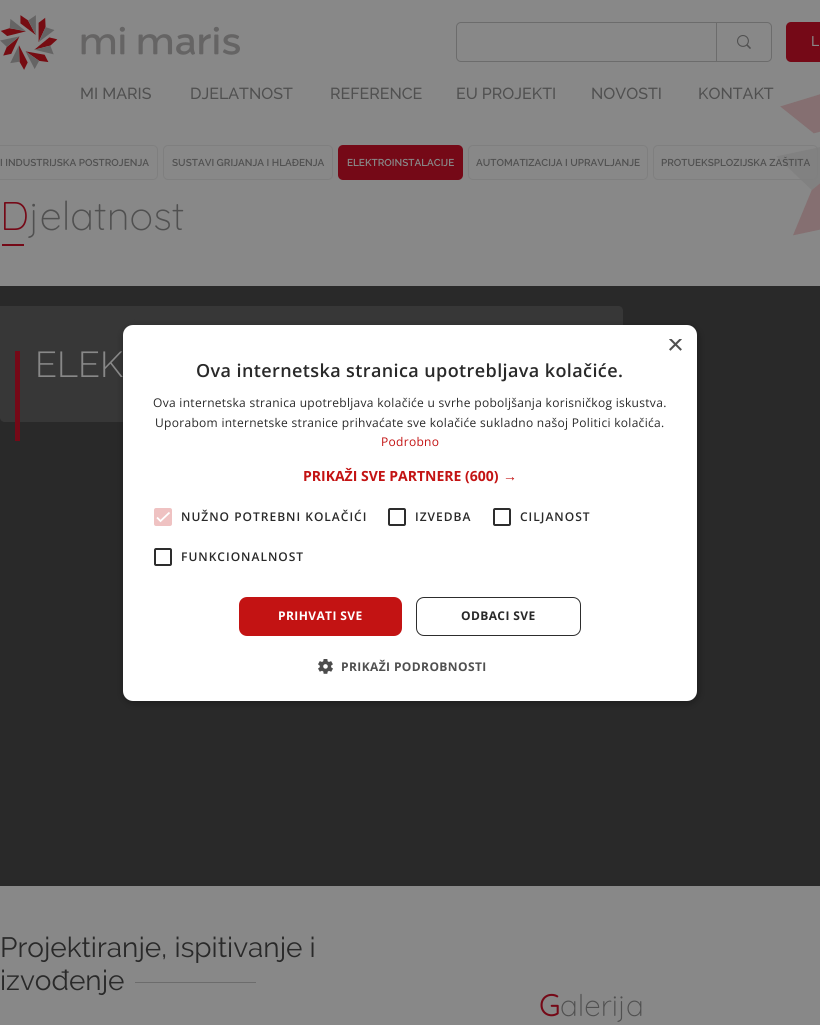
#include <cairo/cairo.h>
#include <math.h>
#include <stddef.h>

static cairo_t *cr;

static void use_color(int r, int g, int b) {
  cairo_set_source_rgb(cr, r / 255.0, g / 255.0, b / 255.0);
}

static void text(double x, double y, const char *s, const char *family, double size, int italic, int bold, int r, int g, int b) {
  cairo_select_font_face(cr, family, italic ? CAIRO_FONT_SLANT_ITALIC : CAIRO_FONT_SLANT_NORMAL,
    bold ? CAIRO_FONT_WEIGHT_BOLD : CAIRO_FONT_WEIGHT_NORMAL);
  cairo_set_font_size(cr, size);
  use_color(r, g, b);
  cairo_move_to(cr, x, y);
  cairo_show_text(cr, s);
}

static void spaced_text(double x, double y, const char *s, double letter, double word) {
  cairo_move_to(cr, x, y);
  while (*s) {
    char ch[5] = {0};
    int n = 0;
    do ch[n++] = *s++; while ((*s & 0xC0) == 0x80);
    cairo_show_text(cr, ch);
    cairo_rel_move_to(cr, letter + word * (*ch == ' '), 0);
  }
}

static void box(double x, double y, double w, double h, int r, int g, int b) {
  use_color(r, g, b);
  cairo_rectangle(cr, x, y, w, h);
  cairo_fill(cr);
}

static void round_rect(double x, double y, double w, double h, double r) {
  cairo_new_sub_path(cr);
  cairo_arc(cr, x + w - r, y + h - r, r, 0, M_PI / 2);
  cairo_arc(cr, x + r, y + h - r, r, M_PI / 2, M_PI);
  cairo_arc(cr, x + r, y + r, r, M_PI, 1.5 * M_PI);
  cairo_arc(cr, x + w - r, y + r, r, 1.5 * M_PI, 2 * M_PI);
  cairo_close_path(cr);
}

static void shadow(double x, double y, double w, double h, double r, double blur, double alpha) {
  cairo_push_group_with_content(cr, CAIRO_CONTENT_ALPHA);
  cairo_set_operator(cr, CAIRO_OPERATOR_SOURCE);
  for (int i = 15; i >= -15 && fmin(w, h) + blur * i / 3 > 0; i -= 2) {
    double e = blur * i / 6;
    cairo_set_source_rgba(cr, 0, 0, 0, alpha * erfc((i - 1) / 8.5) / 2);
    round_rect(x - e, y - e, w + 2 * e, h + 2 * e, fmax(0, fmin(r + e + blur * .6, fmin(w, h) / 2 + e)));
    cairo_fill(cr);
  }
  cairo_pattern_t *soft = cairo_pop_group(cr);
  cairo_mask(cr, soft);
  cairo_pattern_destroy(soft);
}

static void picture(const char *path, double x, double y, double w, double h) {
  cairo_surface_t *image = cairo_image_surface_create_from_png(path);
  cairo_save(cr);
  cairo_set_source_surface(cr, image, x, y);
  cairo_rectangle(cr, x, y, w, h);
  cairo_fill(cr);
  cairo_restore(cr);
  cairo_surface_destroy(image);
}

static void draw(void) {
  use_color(136, 136, 136);
  cairo_paint(cr);
  picture("img_01.png", 0, 15, 240, 55);
  round_rect(456.5, 22.5, 315, 39, 4.5);
  use_color(108, 108, 108);
  cairo_set_line_width(cr, 1);
  cairo_stroke(cr);
  box(716, 23, 1, 38, 108, 108, 108);
  picture("img_02.png", 737, 35, 14, 14);
  use_color(117, 9, 23);
  round_rect(786, 22, 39, 40, 5);
  cairo_fill(cr);
  picture("img_03.png", 776, 94, 44, 142);
  round_rect(-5.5, 145.5, 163, 34, 4.5);
  use_color(127, 127, 127);
  cairo_stroke(cr);
  round_rect(163.5, 145.5, 169, 34, 4.5);
  cairo_stroke(cr);
  use_color(117, 9, 23);
  round_rect(338, 145, 125, 35, 5);
  cairo_fill(cr);
  round_rect(468.5, 145.5, 179, 34, 4.5);
  use_color(127, 127, 127);
  cairo_stroke(cr);
  round_rect(653.5, 145.5, 164, 34, 4.5);
  cairo_stroke(cr);
  box(2, 244, 22, 2, 117, 9, 23);
  box(0, 286, 820, 600, 41, 41, 41);
  use_color(55, 55, 55);
  cairo_new_path(cr);
  cairo_move_to(cr, 0, 306);
  cairo_line_to(cr, 618, 306);
  cairo_curve_to(cr, 621, 306, 623, 308, 623, 311);
  cairo_line_to(cr, 623, 417);
  cairo_curve_to(cr, 623, 420, 621, 422, 618, 422);
  cairo_line_to(cr, 5, 422);
  cairo_curve_to(cr, 2, 422, 0, 420, 0, 417);
  cairo_close_path(cr);
  cairo_fill(cr);
  box(15, 351, 5, 90, 117, 9, 23);
  box(135, 982, 121, 1, 108, 108, 108);
  use_color(0, 0, 0);
  shadow(124, 327, 574, 376, 10, 4, 0.35);
  use_color(255, 255, 255);
  round_rect(123, 325, 574, 376, 10);
  cairo_fill(cr);
  use_color(239, 194, 194);
  round_rect(154, 508, 18, 18, 2);
  cairo_fill(cr);
  cairo_new_path(cr);
  cairo_move_to(cr, 157, 517.5);
  cairo_line_to(cr, 160.5, 521);
  cairo_line_to(cr, 169.5, 512.5);
  use_color(255, 255, 255);
  cairo_set_line_width(cr, 1.8);
  cairo_stroke(cr);
  round_rect(389, 509, 16, 16, 1);
  use_color(45, 45, 45);
  cairo_set_line_width(cr, 2);
  cairo_stroke(cr);
  round_rect(494, 509, 16, 16, 1);
  cairo_stroke(cr);
  round_rect(155, 549, 16, 16, 1);
  cairo_stroke(cr);
  use_color(195, 19, 19);
  round_rect(239, 597, 163, 39, 8);
  cairo_fill(cr);
  round_rect(416.5, 597.5, 164, 38, 7.5);
  use_color(45, 45, 45);
  cairo_set_line_width(cr, 1);
  cairo_stroke(cr);
  picture("img_04.png", 318, 659, 15, 15);
  text(811, 46, "L", "Raleway Medium", 14, 0, 0, 136, 136, 136);
  text(80, 99, "MI MARIS", "Raleway Medium", 16, 0, 0, 80, 80, 80);
  text(190, 99, "DJELATNOST", "Raleway Medium", 16, 0, 0, 80, 80, 80);
  text(330, 99, "REFERENCE", "Raleway Medium", 16, 0, 0, 80, 80, 80);
  text(456, 99, "EU PROJEKTI", "Raleway Medium", 16, 0, 0, 80, 80, 80);
  text(591, 99, "NOVOSTI", "Raleway Medium", 16, 0, 0, 80, 80, 80);
  text(698, 99, "KONTAKT", "Raleway Medium", 16, 0, 0, 80, 80, 80);
  text(0, 166, "I INDUSTRIJSKA POSTROJENJA", "Raleway SemiBold", 10, 0, 0, 80, 80, 80);
  text(172, 166, "SUSTAVI GRIJANJA I HLAĐENJA", "Raleway SemiBold", 10, 0, 0, 80, 80, 80);
  text(347, 166, "ELEKTROINSTALACIJE", "Raleway SemiBold", 10, 0, 0, 136, 136, 136);
  text(476, 166, "AUTOMATIZACIJA I UPRAVLJANJE", "Raleway SemiBold", 10, 0, 0, 80, 80, 80);
  text(661, 166, "PROTUEKSPLOZIJSKA ZAŠTITA", "Raleway SemiBold", 10, 0, 0, 80, 80, 80);
  text(0, 230, "D", "Quicksand Light", 40, 0, 0, 117, 9, 23);
  text(29, 230, "jelatnost", "Quicksand Light", 40, 0, 0, 80, 80, 80);
  text(35, 377, "ELEK", "Raleway Light", 36, 0, 0, 136, 136, 136);
  text(0, 957, "Projektiranje, ispitivanje i", "Raleway", 28, 0, 0, 41, 41, 41);
  text(0, 990, "izvođenje", "Raleway", 28, 0, 0, 41, 41, 41);
  text(539, 1016, "G", "Quicksand", 30, 0, 1, 117, 9, 23);
  text(560, 1016, "alerija", "Quicksand Light", 30, 0, 0, 80, 80, 80);
  cairo_save(cr);
  cairo_rectangle(cr, 667, 339, 15, 15);
  cairo_clip(cr);
  text(667, 354, "×", "Liberation Sans", 29, 0, 0, 80, 80, 80);
  cairo_restore(cr);
  cairo_select_font_face(cr, "Open Sans SemiBold", CAIRO_FONT_SLANT_NORMAL, CAIRO_FONT_WEIGHT_NORMAL);
  cairo_set_font_size(cr, 18);
  use_color(41, 41, 41);
  spaced_text(196, 377, "Ova internetska stranica upotrebljava kolačiće.", 0.4, 0);
  cairo_select_font_face(cr, "Open Sans", CAIRO_FONT_SLANT_NORMAL, CAIRO_FONT_WEIGHT_NORMAL);
  cairo_set_font_size(cr, 12);
  spaced_text(153, 407, "Ova internetska stranica upotrebljava kolačiće u svrhe poboljšanja korisničkog iskustva.", 0.3, 0);
  spaced_text(155, 427, "Uporabom internetske stranice prihvaćate sve kolačiće sukladno našoj Politici kolačića.", 0.3, 0);
  use_color(195, 19, 19);
  spaced_text(381, 446, "Podrobno", 0.3, 0);
  text(303, 481, "PRIKAŽI SVE PARTNERE (600)", "Open Sans", 14, 0, 1, 195, 19, 19);
  text(503, 481, "→", "Liberation Sans", 14, 0, 1, 195, 19, 19);
  cairo_select_font_face(cr, "Open Sans SemiBold", CAIRO_FONT_SLANT_NORMAL, CAIRO_FONT_WEIGHT_NORMAL);
  cairo_set_font_size(cr, 12);
  use_color(41, 41, 41);
  spaced_text(181, 521, "NUŽNO POTREBNI KOLAČIĆI", 1, 0);
  spaced_text(415, 521, "IZVEDBA", 1, 0);
  spaced_text(520, 521, "CILJANOST", 1, 0);
  spaced_text(181, 561, "FUNKCIONALNOST", 1, 0);
  cairo_select_font_face(cr, "Open Sans", CAIRO_FONT_SLANT_NORMAL, CAIRO_FONT_WEIGHT_BOLD);
  use_color(255, 255, 255);
  spaced_text(278, 620, "PRIHVATI SVE", 0.4, 0);
  use_color(41, 41, 41);
  spaced_text(461, 620, "ODBACI SVE", 0.4, 0);
  use_color(80, 80, 80);
  spaced_text(341, 671, "PRIKAŽI PODROBNOSTI", 0.4, 0);
}

int main(void) {
  cairo_surface_t *surface = cairo_image_surface_create(CAIRO_FORMAT_RGB24, 820, 1025);
  cr = cairo_create(surface);
  cairo_font_options_t *options = cairo_font_options_create();
  cairo_font_options_set_hint_metrics(options, CAIRO_HINT_METRICS_OFF);
  cairo_font_options_set_hint_style(options, CAIRO_HINT_STYLE_NONE);
  cairo_set_font_options(cr, options);
  cairo_set_miter_limit(cr, 4);
  draw();
  cairo_surface_write_to_png(surface, "out.png");
  cairo_font_options_destroy(options);
  cairo_destroy(cr);
  cairo_surface_destroy(surface);
  return 0;
}
